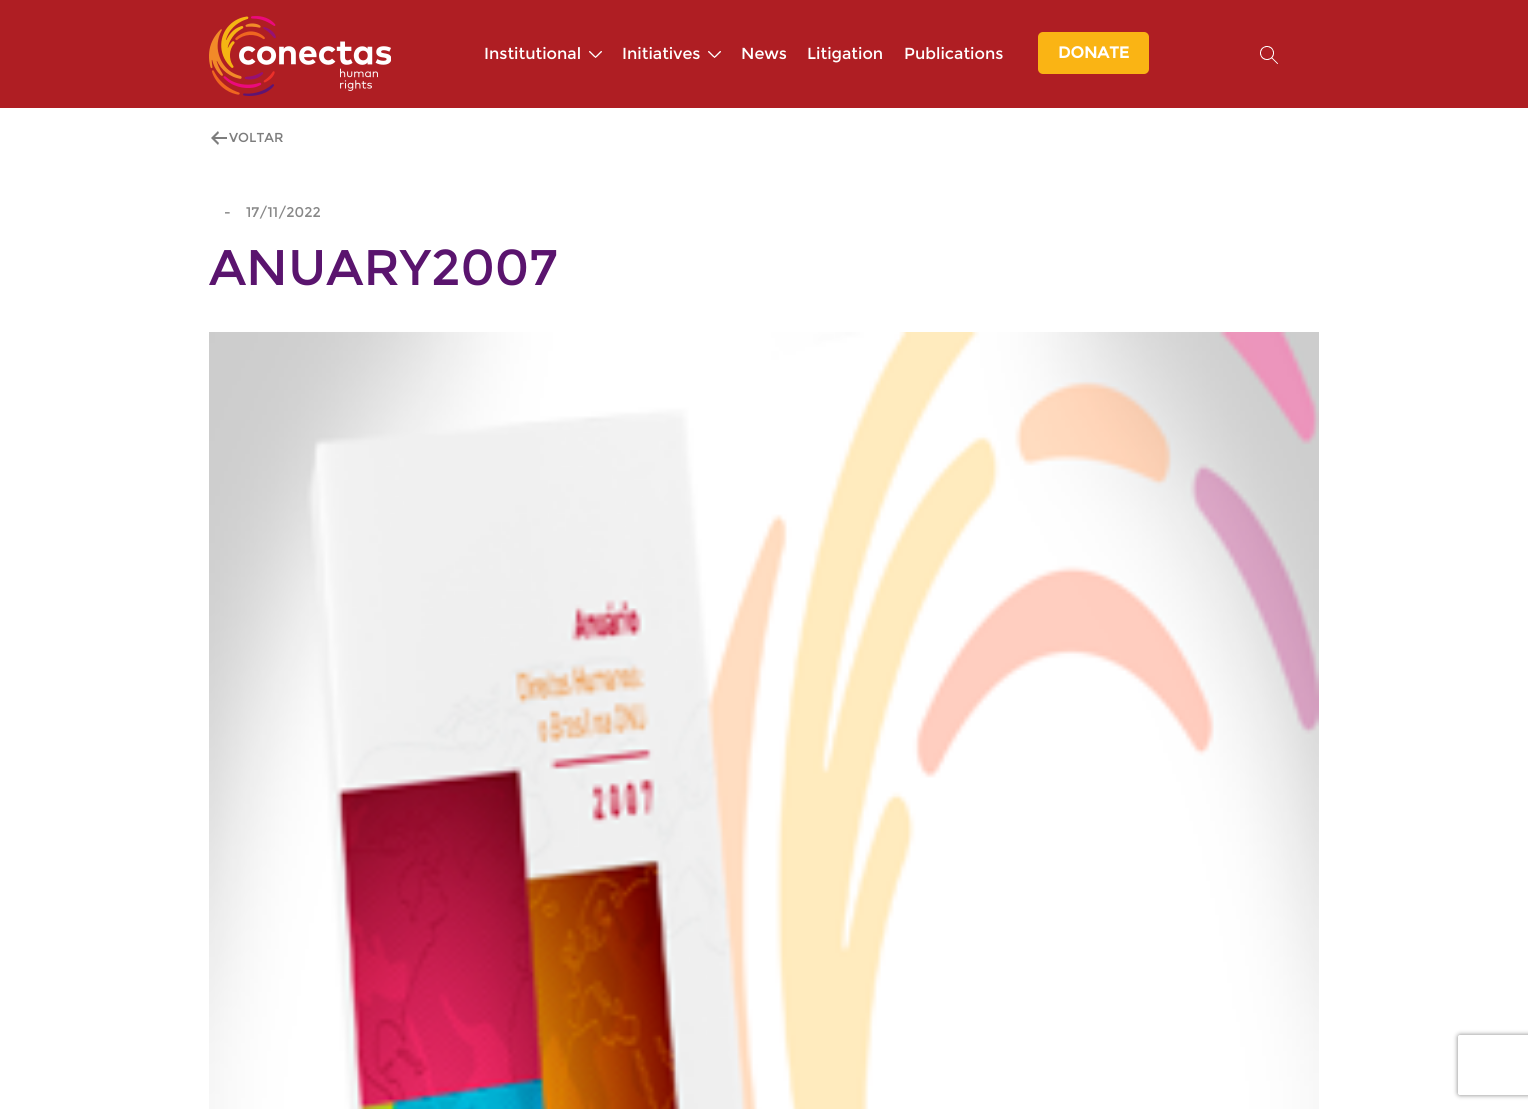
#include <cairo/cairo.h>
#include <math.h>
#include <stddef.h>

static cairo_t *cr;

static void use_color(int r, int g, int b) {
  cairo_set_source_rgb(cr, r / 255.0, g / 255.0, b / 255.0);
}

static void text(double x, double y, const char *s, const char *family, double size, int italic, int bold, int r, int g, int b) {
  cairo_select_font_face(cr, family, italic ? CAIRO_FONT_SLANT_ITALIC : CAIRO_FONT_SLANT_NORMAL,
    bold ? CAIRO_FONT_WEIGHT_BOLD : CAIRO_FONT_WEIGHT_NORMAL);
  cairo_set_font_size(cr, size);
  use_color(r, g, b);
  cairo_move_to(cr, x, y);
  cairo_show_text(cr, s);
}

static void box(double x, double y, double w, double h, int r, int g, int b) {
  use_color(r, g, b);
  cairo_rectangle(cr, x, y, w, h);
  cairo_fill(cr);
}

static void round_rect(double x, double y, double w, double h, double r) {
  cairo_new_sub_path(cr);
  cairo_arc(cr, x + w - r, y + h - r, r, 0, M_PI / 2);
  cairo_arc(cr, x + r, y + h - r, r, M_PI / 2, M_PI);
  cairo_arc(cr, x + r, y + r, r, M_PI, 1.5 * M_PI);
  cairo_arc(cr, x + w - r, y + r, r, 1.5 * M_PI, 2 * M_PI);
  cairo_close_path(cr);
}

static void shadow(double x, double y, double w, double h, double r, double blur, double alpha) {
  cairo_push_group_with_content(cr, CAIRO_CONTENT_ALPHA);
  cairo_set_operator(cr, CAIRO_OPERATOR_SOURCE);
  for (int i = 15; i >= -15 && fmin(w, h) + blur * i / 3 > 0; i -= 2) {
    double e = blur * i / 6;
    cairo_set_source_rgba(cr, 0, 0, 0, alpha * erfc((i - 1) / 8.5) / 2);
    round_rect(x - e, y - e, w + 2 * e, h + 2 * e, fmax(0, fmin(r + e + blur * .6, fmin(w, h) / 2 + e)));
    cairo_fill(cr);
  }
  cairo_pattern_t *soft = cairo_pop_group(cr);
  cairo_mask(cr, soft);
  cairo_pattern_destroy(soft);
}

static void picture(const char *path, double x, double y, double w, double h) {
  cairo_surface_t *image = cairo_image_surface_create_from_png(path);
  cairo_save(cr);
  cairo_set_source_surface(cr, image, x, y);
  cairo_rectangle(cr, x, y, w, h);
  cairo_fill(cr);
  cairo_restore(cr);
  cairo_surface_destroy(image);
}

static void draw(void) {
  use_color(255, 255, 255);
  cairo_paint(cr);
  box(0, 0, 1528, 108, 175, 30, 35);
  picture("img_01.png", 209, 16, 182, 80);
  picture("img_02.png", 589, 51, 13, 7);
  picture("img_02.png", 708, 51, 13, 7);
  use_color(250, 180, 20);
  round_rect(1038, 32, 111, 42, 5);
  cairo_fill(cr);
  picture("img_03.png", 1260, 46, 18, 18);
  picture("img_04.png", 211, 131, 16, 14);
  picture("img_05.png", 209, 332, 1110, 777);
  cairo_save(cr);
  cairo_set_fill_rule(cr, CAIRO_FILL_RULE_EVEN_ODD);
  cairo_new_path(cr);
  cairo_move_to(cr, 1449, 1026);
  cairo_line_to(cr, 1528, 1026);
  cairo_line_to(cr, 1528, 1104);
  cairo_line_to(cr, 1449, 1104);
  cairo_close_path(cr);
  cairo_move_to(cr, 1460, 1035);
  cairo_line_to(cr, 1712, 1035);
  cairo_curve_to(cr, 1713, 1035, 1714, 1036, 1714, 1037);
  cairo_line_to(cr, 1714, 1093);
  cairo_curve_to(cr, 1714, 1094, 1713, 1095, 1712, 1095);
  cairo_line_to(cr, 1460, 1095);
  cairo_curve_to(cr, 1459, 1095, 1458, 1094, 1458, 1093);
  cairo_line_to(cr, 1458, 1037);
  cairo_curve_to(cr, 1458, 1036, 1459, 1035, 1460, 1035);
  cairo_close_path(cr);
  cairo_clip(cr);
  use_color(128, 128, 128);
  shadow(1458, 1035, 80, 60, 2, 2.5, 1);
  cairo_restore(cr);
  text(484, 59, "Institutional", "Montserrat", 16, 0, 0, 255, 255, 255);
  text(622, 59, "Initiatives", "Montserrat", 16, 0, 0, 255, 255, 255);
  text(741, 59, "News", "Montserrat", 16, 0, 0, 255, 255, 255);
  text(807, 59, "Litigation", "Montserrat", 16, 0, 0, 255, 255, 255);
  text(904, 59, "Publications", "Montserrat", 16, 0, 0, 255, 255, 255);
  text(1058, 58, "DONATE", "Montserrat", 16, 0, 1, 255, 255, 255);
  text(229, 142, "VOLTAR", "Montserrat", 13, 0, 0, 125, 125, 125);
  text(224, 217, "-", "Montserrat", 14, 0, 0, 136, 136, 136);
  text(246, 217, "17/11/2022", "Montserrat", 14, 0, 0, 136, 136, 136);
  text(209, 285, "ANUARY2007", "Montserrat", 50, 0, 0, 90, 20, 110);
}

int main(void) {
  cairo_surface_t *surface = cairo_image_surface_create(CAIRO_FORMAT_RGB24, 1528, 1109);
  cr = cairo_create(surface);
  cairo_font_options_t *options = cairo_font_options_create();
  cairo_font_options_set_hint_metrics(options, CAIRO_HINT_METRICS_OFF);
  cairo_font_options_set_hint_style(options, CAIRO_HINT_STYLE_NONE);
  cairo_set_font_options(cr, options);
  cairo_set_miter_limit(cr, 4);
  draw();
  cairo_surface_write_to_png(surface, "out.png");
  cairo_font_options_destroy(options);
  cairo_destroy(cr);
  cairo_surface_destroy(surface);
  return 0;
}
